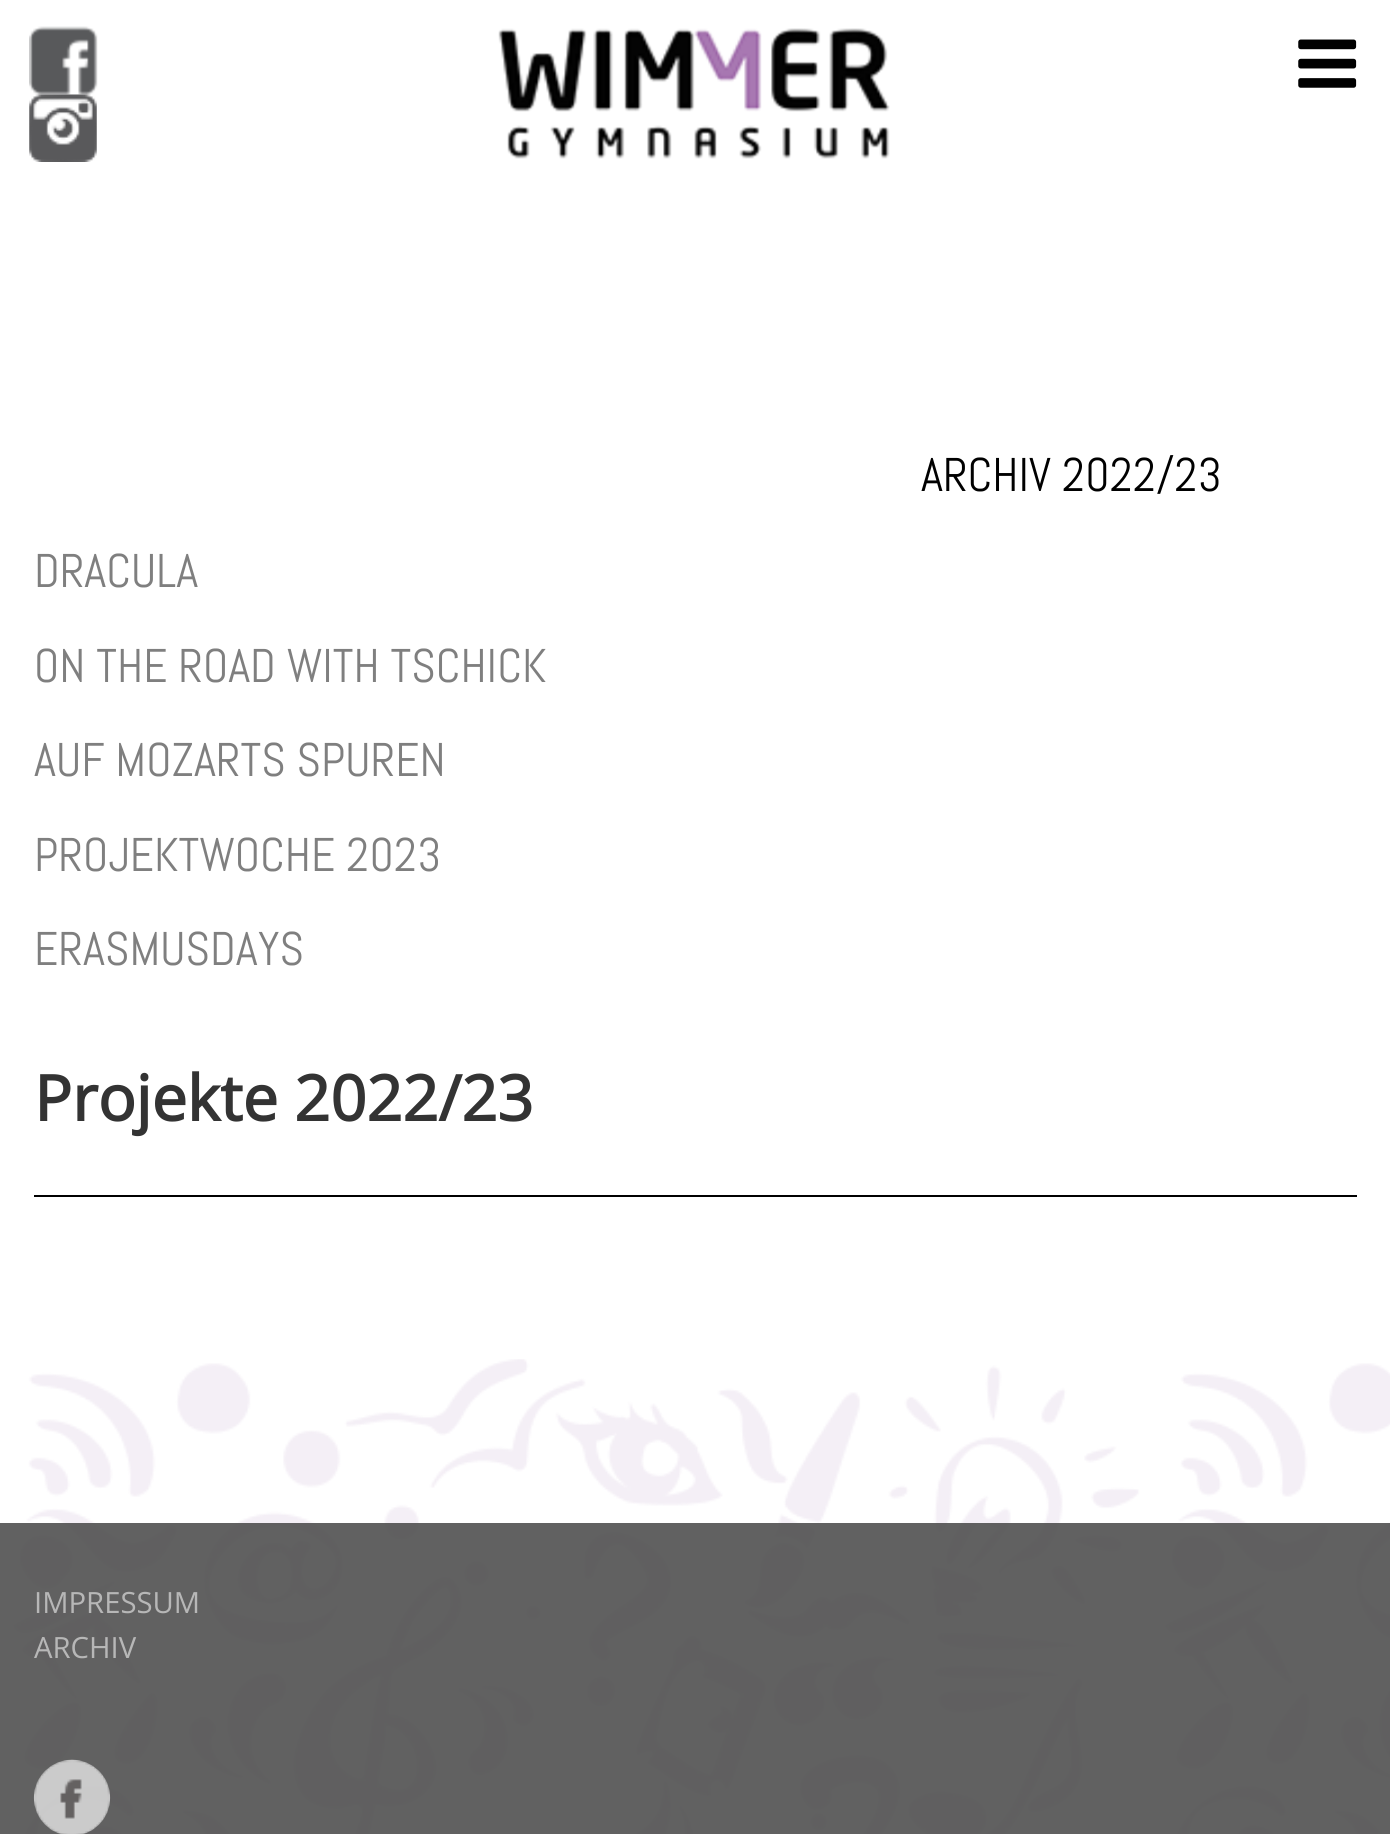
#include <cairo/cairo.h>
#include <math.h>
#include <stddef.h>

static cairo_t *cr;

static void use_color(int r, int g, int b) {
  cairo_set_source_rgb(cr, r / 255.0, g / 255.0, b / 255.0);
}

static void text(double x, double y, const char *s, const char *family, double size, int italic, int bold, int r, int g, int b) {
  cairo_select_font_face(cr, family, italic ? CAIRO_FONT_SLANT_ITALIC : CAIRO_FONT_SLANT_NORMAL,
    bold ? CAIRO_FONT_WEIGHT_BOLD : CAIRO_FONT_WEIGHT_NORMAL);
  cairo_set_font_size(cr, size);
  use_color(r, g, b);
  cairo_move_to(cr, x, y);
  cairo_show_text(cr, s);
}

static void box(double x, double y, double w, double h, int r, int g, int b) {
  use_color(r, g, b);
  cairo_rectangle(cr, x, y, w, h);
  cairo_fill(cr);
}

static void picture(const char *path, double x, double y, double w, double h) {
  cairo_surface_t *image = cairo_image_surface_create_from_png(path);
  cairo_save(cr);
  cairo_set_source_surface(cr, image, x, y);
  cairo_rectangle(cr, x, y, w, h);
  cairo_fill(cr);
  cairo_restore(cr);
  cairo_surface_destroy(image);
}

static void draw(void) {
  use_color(255, 255, 255);
  cairo_paint(cr);
  picture("img_01.png", 29, 26, 69, 69);
  picture("img_02.png", 29, 94, 68, 68);
  picture("img_03.png", 498, 28, 392, 131);
  picture("img_04.png", 1298, 39, 59, 49);
  box(34, 1195, 1323, 2, 0, 0, 0);
  picture("img_05.png", 13, 1359, 1377, 475);
  cairo_set_source_rgba(cr, 0.314, 0.314, 0.314, 0.9);
  cairo_rectangle(cr, 0, 1523, 1390, 311);
  cairo_fill(cr);
  picture("img_06.png", 33, 1759, 78, 75);
  text(921, 491, "ARCHIV 2022/23", "Abel", 47.25, 0, 0, 0, 0, 0);
  text(34, 587, "DRACULA", "Abel", 47.25, 0, 0, 127, 127, 127);
  text(34, 682, "ON THE ROAD WITH TSCHICK", "Abel", 47.25, 0, 0, 127, 127, 127);
  text(34, 776, "AUF MOZARTS SPUREN", "Abel", 47.25, 0, 0, 127, 127, 127);
  text(34, 871, "PROJEKTWOCHE 2023", "Abel", 47.25, 0, 0, 127, 127, 127);
  text(34, 965, "ERASMUSDAYS", "Abel", 47.25, 0, 0, 127, 127, 127);
  text(34, 1121, "Projekte 2022/23", "Open Sans", 63, 0, 1, 51, 51, 51);
  text(34, 1613, "IMPRESSUM", "Open Sans", 29.25, 0, 0, 183, 183, 183);
  text(34, 1658, "ARCHIV", "Open Sans", 29.25, 0, 0, 183, 183, 183);
}

int main(void) {
  cairo_surface_t *surface = cairo_image_surface_create(CAIRO_FORMAT_RGB24, 1390, 1834);
  cr = cairo_create(surface);
  cairo_font_options_t *options = cairo_font_options_create();
  cairo_font_options_set_hint_metrics(options, CAIRO_HINT_METRICS_OFF);
  cairo_font_options_set_hint_style(options, CAIRO_HINT_STYLE_NONE);
  cairo_set_font_options(cr, options);
  cairo_set_miter_limit(cr, 4);
  draw();
  cairo_surface_write_to_png(surface, "out.png");
  cairo_font_options_destroy(options);
  cairo_destroy(cr);
  cairo_surface_destroy(surface);
  return 0;
}
